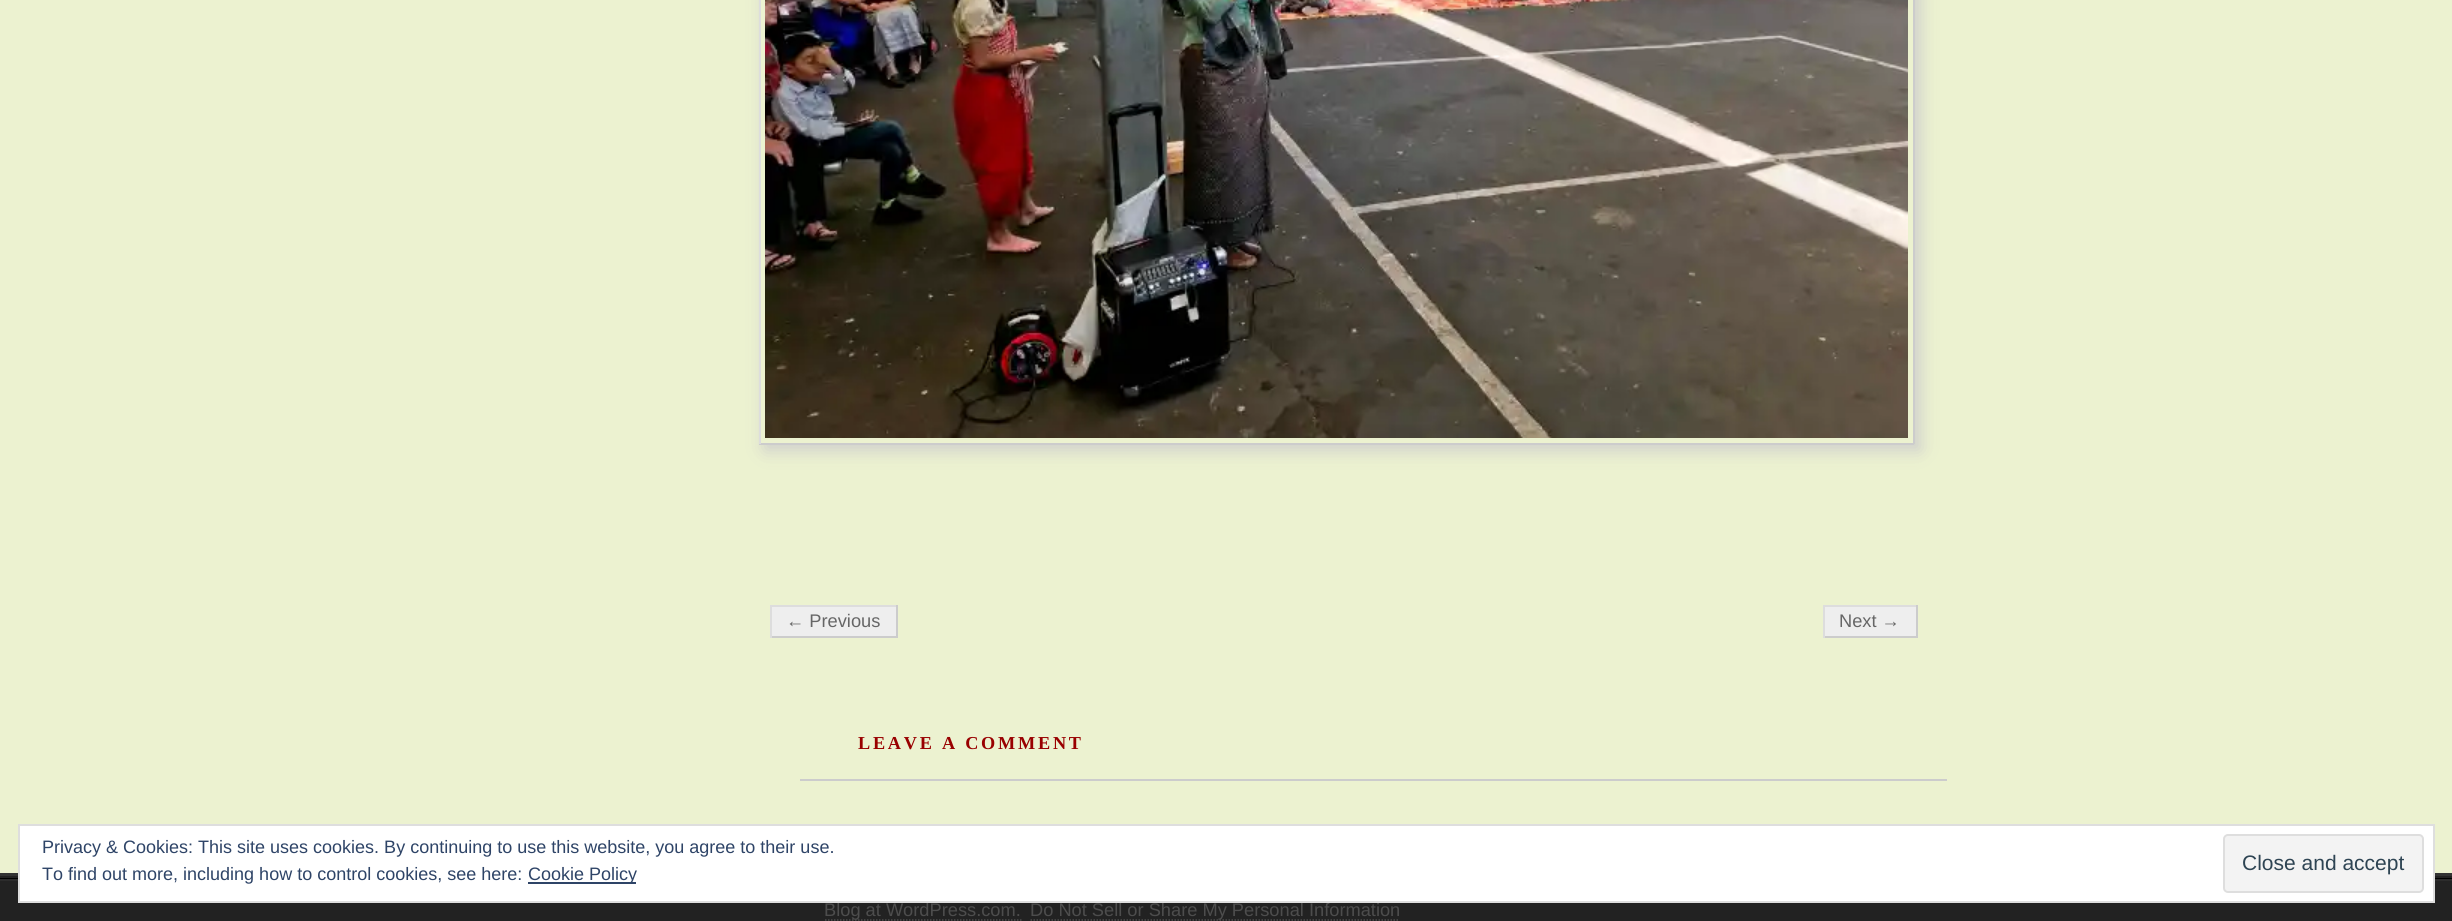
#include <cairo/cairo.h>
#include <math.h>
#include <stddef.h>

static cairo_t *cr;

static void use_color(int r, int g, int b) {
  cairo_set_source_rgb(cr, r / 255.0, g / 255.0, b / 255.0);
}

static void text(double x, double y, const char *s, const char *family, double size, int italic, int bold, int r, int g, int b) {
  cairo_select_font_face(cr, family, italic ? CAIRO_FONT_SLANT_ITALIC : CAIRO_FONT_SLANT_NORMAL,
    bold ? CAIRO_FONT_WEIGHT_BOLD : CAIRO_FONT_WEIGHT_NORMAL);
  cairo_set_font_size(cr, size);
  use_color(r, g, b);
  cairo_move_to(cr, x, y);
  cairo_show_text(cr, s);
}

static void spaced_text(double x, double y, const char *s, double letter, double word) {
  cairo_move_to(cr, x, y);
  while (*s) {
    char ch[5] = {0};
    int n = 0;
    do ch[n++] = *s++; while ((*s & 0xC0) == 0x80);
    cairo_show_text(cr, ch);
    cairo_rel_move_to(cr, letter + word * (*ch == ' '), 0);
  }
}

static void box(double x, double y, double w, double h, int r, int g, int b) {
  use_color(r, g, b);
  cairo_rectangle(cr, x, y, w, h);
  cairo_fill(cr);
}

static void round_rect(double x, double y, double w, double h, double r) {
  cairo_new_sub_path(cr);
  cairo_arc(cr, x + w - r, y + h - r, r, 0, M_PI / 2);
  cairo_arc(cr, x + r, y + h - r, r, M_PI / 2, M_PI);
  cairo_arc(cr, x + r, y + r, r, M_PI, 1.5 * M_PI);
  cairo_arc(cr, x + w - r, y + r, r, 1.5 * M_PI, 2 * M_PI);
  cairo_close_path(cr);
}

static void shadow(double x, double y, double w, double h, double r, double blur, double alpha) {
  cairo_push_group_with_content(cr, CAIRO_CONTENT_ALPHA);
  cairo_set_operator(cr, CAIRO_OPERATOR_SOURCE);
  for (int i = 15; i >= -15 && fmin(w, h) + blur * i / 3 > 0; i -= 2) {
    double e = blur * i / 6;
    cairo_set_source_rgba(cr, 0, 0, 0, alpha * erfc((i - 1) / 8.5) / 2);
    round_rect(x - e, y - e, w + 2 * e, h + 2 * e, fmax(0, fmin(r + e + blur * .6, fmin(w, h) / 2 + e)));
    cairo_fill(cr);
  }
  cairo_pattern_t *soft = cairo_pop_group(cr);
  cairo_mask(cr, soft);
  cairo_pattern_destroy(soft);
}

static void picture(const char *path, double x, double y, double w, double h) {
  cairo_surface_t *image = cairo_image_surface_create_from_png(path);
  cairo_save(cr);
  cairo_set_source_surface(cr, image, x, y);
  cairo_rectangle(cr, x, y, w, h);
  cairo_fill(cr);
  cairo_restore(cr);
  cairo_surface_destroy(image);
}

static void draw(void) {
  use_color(236, 242, 208);
  cairo_paint(cr);
  cairo_save(cr);
  cairo_set_fill_rule(cr, CAIRO_FILL_RULE_EVEN_ODD);
  cairo_new_path(cr);
  cairo_move_to(cr, 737, 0);
  cairo_line_to(cr, 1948, 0);
  cairo_line_to(cr, 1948, 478);
  cairo_line_to(cr, 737, 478);
  cairo_close_path(cr);
  cairo_move_to(cr, 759, -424);
  cairo_line_to(cr, 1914, -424);
  cairo_line_to(cr, 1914, 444);
  cairo_line_to(cr, 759, 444);
  cairo_close_path(cr);
  cairo_clip(cr);
  use_color(204, 204, 204);
  shadow(765, -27, 1155, 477, 0, 9, 1);
  cairo_restore(cr);
  box(1913, 0, 2, 444, 204, 204, 204);
  box(759, 443, 1155, 2, 204, 204, 204);
  box(759, 0, 2, 444, 221, 221, 221);
  picture("img_01.png", 765, 0, 1143, 438);
  box(772, 607, 124, 29, 238, 238, 238);
  box(770, 605, 127, 2, 221, 221, 221);
  box(896, 605, 2, 33, 204, 204, 204);
  box(770, 636, 127, 2, 204, 204, 204);
  box(770, 605, 2, 33, 221, 221, 221);
  box(1825, 607, 91, 29, 238, 238, 238);
  box(1823, 605, 94, 2, 221, 221, 221);
  box(1916, 605, 2, 33, 204, 204, 204);
  box(1823, 636, 94, 2, 204, 204, 204);
  box(1823, 605, 2, 33, 221, 221, 221);
  box(800, 779, 1147, 2, 204, 204, 204);
  box(0, 878, 2452, 1, 0, 0, 0);
  box(0, 873, 2452, 3, 51, 51, 51);
  box(0, 876, 2452, 2, 34, 34, 34);
  box(0, 881, 2452, 40, 34, 34, 34);
  box(0, 879, 2452, 2, 44, 44, 44);
  cairo_new_path(cr);
  cairo_move_to(cr, 825, 920);
  cairo_line_to(cr, 1021.5, 920);
  use_color(77, 77, 77);
  cairo_set_line_width(cr, 1.5);
  cairo_set_dash(cr, (double[]){1.5, 1.5}, 2, 0);
  cairo_stroke(cr);
  cairo_new_path(cr);
  cairo_move_to(cr, 1030.5, 920);
  cairo_line_to(cr, 1399.5, 920);
  cairo_stroke(cr);
  text(786, 627, "← Previous", "Liberation Sans", 18.25, 0, 0, 102, 102, 102);
  text(1839, 627, "Next →", "Liberation Sans", 18.25, 0, 0, 102, 102, 102);
  cairo_select_font_face(cr, "Liberation Serif", CAIRO_FONT_SLANT_NORMAL, CAIRO_FONT_WEIGHT_BOLD);
  use_color(153, 0, 0);
  spaced_text(858, 749, "LEAVE A COMMENT", 2.75, 0);
  text(824, 916, "Blog at WordPress.com.", "Liberation Sans", 18.25, 0, 0, 77, 77, 77);
  text(1030, 916, "Do Not Sell or Share My Personal Information", "Liberation Sans", 18.25, 0, 0, 77, 77, 77);
  use_color(255, 255, 255);
  cairo_rectangle(cr, 19, 825, 2415, 77);
  cairo_fill_preserve(cr);
  use_color(222, 222, 222);
  cairo_set_line_width(cr, 2);
  cairo_set_dash(cr, NULL, 0, 0);
  cairo_stroke(cr);
  text(42, 853, "Privacy & Cookies: This site uses cookies. By continuing to use this website, you agree to their use.", "Liberation Sans", 18, 0, 0, 46, 68, 103);
  text(42, 880, "To find out more, including how to control cookies, see here:", "Liberation Sans", 18, 0, 0, 46, 68, 103);
  box(528, 882, 108, 2, 46, 68, 103);
  text(528, 880, "Cookie Policy", "Liberation Sans", 18, 0, 0, 46, 68, 103);
  use_color(243, 243, 243);
  round_rect(2224, 835, 199, 57, 4);
  cairo_fill_preserve(cr);
  use_color(222, 222, 222);
  cairo_stroke(cr);
  text(2242, 870, "Close and accept", "Liberation Sans", 21, 0, 0, 46, 68, 83);
}

int main(void) {
  cairo_surface_t *surface = cairo_image_surface_create(CAIRO_FORMAT_RGB24, 2452, 921);
  cr = cairo_create(surface);
  cairo_font_options_t *options = cairo_font_options_create();
  cairo_font_options_set_hint_metrics(options, CAIRO_HINT_METRICS_OFF);
  cairo_font_options_set_hint_style(options, CAIRO_HINT_STYLE_NONE);
  cairo_set_font_options(cr, options);
  cairo_set_miter_limit(cr, 4);
  draw();
  cairo_surface_write_to_png(surface, "out.png");
  cairo_font_options_destroy(options);
  cairo_destroy(cr);
  cairo_surface_destroy(surface);
  return 0;
}
